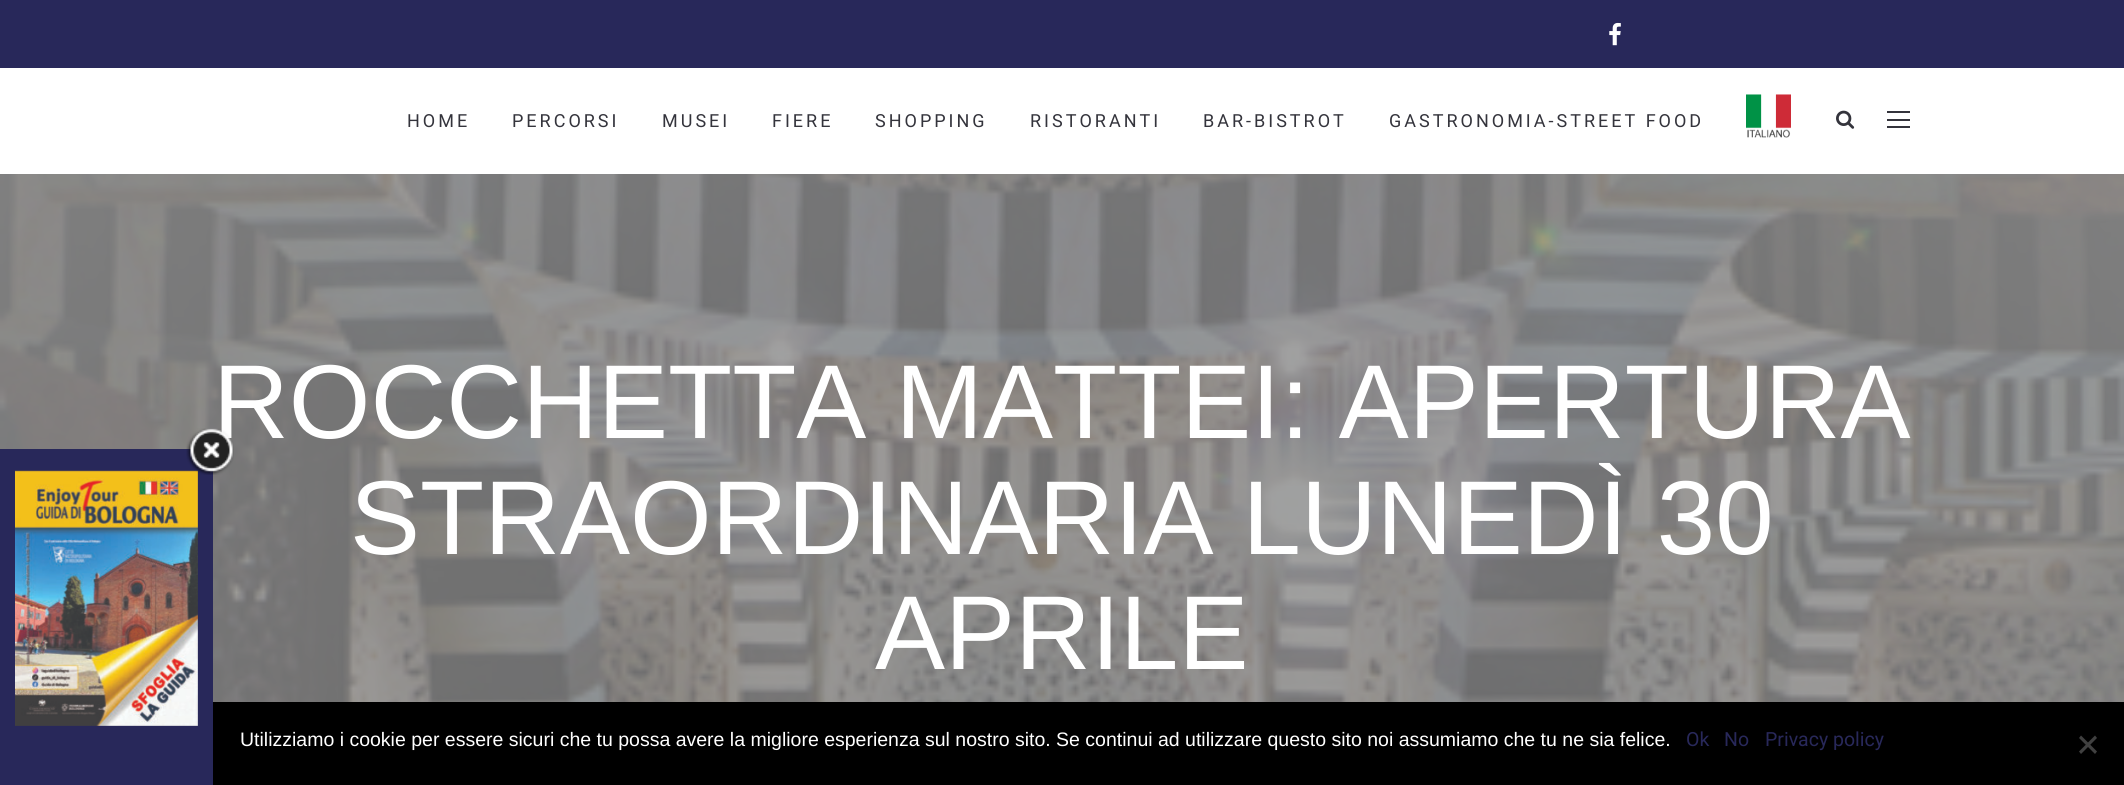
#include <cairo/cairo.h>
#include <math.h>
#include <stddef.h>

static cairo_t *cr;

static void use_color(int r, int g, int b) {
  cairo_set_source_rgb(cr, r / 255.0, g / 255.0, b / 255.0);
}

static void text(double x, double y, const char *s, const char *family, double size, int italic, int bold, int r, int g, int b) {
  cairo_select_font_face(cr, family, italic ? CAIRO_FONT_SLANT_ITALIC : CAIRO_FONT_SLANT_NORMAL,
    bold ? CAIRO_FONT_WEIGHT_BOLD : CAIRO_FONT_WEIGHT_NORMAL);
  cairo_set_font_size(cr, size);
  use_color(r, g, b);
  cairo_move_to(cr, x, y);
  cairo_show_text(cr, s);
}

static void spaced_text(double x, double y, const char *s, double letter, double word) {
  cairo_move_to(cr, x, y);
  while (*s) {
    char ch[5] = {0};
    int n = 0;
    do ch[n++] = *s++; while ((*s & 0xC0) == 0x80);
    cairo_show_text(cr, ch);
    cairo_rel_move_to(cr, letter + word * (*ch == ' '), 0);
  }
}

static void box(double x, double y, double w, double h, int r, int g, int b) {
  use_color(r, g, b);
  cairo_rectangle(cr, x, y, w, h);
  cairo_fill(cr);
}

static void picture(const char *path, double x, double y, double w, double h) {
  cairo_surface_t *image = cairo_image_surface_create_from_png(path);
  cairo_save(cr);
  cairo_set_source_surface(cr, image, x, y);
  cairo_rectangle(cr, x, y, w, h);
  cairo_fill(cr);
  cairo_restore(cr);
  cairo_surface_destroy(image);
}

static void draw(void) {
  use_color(160, 160, 160);
  cairo_paint(cr);
  picture("img_06.png", 0, 174, 2124, 528);
  box(0, 449, 213, 336, 40, 40, 90);
  picture("img_02.png", 15, 470, 183, 256);
  box(0, 68, 2124, 106, 255, 255, 255);
  box(0, 0, 2124, 68, 40, 40, 90);
  picture("img_03.png", 1609, 22, 12, 24);
  picture("img_04.png", 1746, 94, 45, 44);
  picture("img_05.png", 1836, 110, 19, 19);
  box(1887, 126, 23, 2, 52, 52, 60);
  box(1887, 111, 23, 2, 52, 52, 60);
  box(1887, 119, 23, 2, 52, 52, 60);
  box(213, 702, 1911, 83, 0, 0, 0);
  use_color(64, 64, 64);
  cairo_new_path(cr);
  cairo_move_to(cr, 2095, 735.5);
  cairo_line_to(cr, 2097, 738);
  cairo_line_to(cr, 2081, 754);
  cairo_line_to(cr, 2079, 751.5);
  cairo_close_path(cr);
  cairo_fill(cr);
  cairo_new_path(cr);
  cairo_move_to(cr, 2079, 738);
  cairo_line_to(cr, 2081, 735.5);
  cairo_line_to(cr, 2097, 751.5);
  cairo_line_to(cr, 2095, 754);
  cairo_close_path(cr);
  cairo_fill(cr);
  cairo_select_font_face(cr, "Roboto", CAIRO_FONT_SLANT_NORMAL, CAIRO_FONT_WEIGHT_NORMAL);
  cairo_set_font_size(cr, 18);
  use_color(52, 52, 60);
  spaced_text(407, 127, "HOME", 3, 0);
  spaced_text(512, 127, "PERCORSI", 3, 0);
  spaced_text(662, 127, "MUSEI", 3, 0);
  spaced_text(772, 127, "FIERE", 3, 0);
  spaced_text(875, 127, "SHOPPING", 3, 0);
  spaced_text(1030, 127, "RISTORANTI", 3, 0);
  spaced_text(1203, 127, "BAR-BISTROT", 3, 0);
  spaced_text(1389, 127, "GASTRONOMIA-STREET FOOD", 3, 0);
  text(213, 438, "ROCCHETTA MATTEI: APERTURA", "Liberation Sans", 105, 0, 0, 255, 255, 255);
  picture("img_01.png", 186, 428, 48, 47);
  text(350, 554, "STRAORDINARIA LUNEDÌ 30", "Liberation Sans", 105, 0, 0, 255, 255, 255);
  text(875, 669, "APRILE", "Liberation Sans", 105, 0, 0, 255, 255, 255);
  text(240, 746, "Utilizziamo i cookie per essere sicuri che tu possa avere la migliore esperienza sul nostro sito. Se continui ad utilizzare questo sito noi assumiamo che tu ne sia felice.", "Liberation Sans", 19.5, 0, 0, 255, 255, 255);
  text(1686, 746, "Ok", "Roboto", 19.5, 0, 0, 40, 40, 90);
  text(1724, 746, "No", "Roboto", 19.5, 0, 0, 40, 40, 90);
  text(1765, 746, "Privacy policy", "Roboto", 19.5, 0, 0, 40, 40, 90);
}

int main(void) {
  cairo_surface_t *surface = cairo_image_surface_create(CAIRO_FORMAT_RGB24, 2124, 785);
  cr = cairo_create(surface);
  cairo_font_options_t *options = cairo_font_options_create();
  cairo_font_options_set_hint_metrics(options, CAIRO_HINT_METRICS_OFF);
  cairo_font_options_set_hint_style(options, CAIRO_HINT_STYLE_NONE);
  cairo_set_font_options(cr, options);
  cairo_set_miter_limit(cr, 4);
  draw();
  cairo_surface_write_to_png(surface, "out.png");
  cairo_font_options_destroy(options);
  cairo_destroy(cr);
  cairo_surface_destroy(surface);
  return 0;
}
